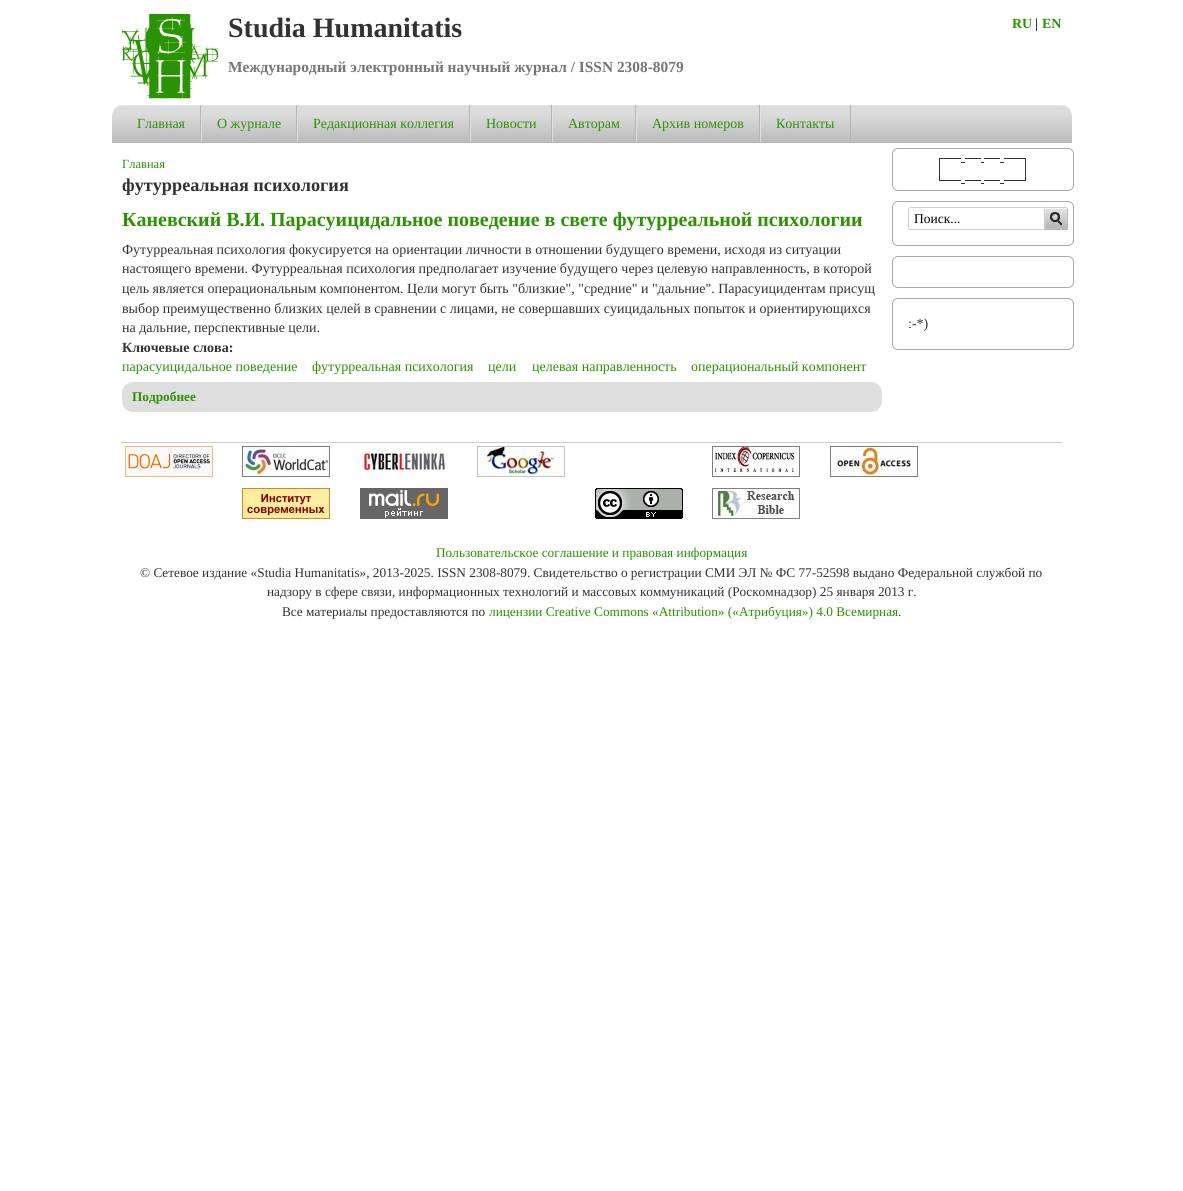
#include <cairo/cairo.h>
#include <math.h>
#include <stddef.h>

static cairo_t *cr;

static void use_color(int r, int g, int b) {
  cairo_set_source_rgb(cr, r / 255.0, g / 255.0, b / 255.0);
}

static void text(double x, double y, const char *s, const char *family, double size, int italic, int bold, int r, int g, int b) {
  cairo_select_font_face(cr, family, italic ? CAIRO_FONT_SLANT_ITALIC : CAIRO_FONT_SLANT_NORMAL,
    bold ? CAIRO_FONT_WEIGHT_BOLD : CAIRO_FONT_WEIGHT_NORMAL);
  cairo_set_font_size(cr, size);
  use_color(r, g, b);
  cairo_move_to(cr, x, y);
  cairo_show_text(cr, s);
}

static void box(double x, double y, double w, double h, int r, int g, int b) {
  use_color(r, g, b);
  cairo_rectangle(cr, x, y, w, h);
  cairo_fill(cr);
}

static void round_rect(double x, double y, double w, double h, double r) {
  cairo_new_sub_path(cr);
  cairo_arc(cr, x + w - r, y + h - r, r, 0, M_PI / 2);
  cairo_arc(cr, x + r, y + h - r, r, M_PI / 2, M_PI);
  cairo_arc(cr, x + r, y + r, r, M_PI, 1.5 * M_PI);
  cairo_arc(cr, x + w - r, y + r, r, 1.5 * M_PI, 2 * M_PI);
  cairo_close_path(cr);
}

static void picture(const char *path, double x, double y, double w, double h) {
  cairo_surface_t *image = cairo_image_surface_create_from_png(path);
  cairo_save(cr);
  cairo_set_source_surface(cr, image, x, y);
  cairo_rectangle(cr, x, y, w, h);
  cairo_fill(cr);
  cairo_restore(cr);
  cairo_surface_destroy(image);
}

static void draw(void) {
  use_color(255, 255, 255);
  cairo_paint(cr);
  picture("img_01.png", 122, 14, 96, 85);
  picture("img_02.png", 112, 105, 960, 37);
  box(112, 142, 960, 1, 181, 181, 180);
  box(200, 105, 1, 37, 181, 181, 180);
  box(296, 105, 1, 37, 181, 181, 180);
  box(201, 105, 1, 37, 225, 225, 225);
  box(469, 105, 1, 37, 181, 181, 180);
  box(297, 105, 1, 37, 225, 225, 225);
  box(551, 105, 1, 37, 181, 181, 180);
  box(470, 105, 1, 37, 225, 225, 225);
  box(635, 105, 1, 37, 181, 181, 180);
  box(552, 105, 1, 37, 225, 225, 225);
  box(759, 105, 1, 37, 181, 181, 180);
  box(636, 105, 1, 37, 225, 225, 225);
  box(850, 105, 1, 37, 181, 181, 180);
  box(760, 105, 1, 37, 225, 225, 225);
  use_color(222, 222, 222);
  round_rect(122, 382, 760, 30, 11);
  cairo_fill(cr);
  round_rect(892.5, 148.5, 181, 42, 5.5);
  use_color(170, 170, 170);
  cairo_set_line_width(cr, 1);
  cairo_stroke(cr);
  box(939, 158, 22, 1, 50, 50, 50);
  box(939, 180, 22, 1, 50, 50, 50);
  box(939, 158, 1, 23, 50, 50, 50);
  box(965, 158, 16, 1, 50, 50, 50);
  box(984, 158, 16, 1, 50, 50, 50);
  box(1004, 158, 22, 1, 50, 50, 50);
  box(961, 162, 4, 1, 50, 50, 50);
  box(981, 162, 3, 1, 50, 50, 50);
  box(1000, 162, 4, 1, 50, 50, 50);
  box(1025, 158, 1, 23, 50, 50, 50);
  box(965, 180, 16, 1, 50, 50, 50);
  box(984, 180, 16, 1, 50, 50, 50);
  box(1004, 180, 22, 1, 50, 50, 50);
  box(961, 183, 4, 1, 50, 50, 50);
  box(981, 183, 3, 1, 50, 50, 50);
  box(1000, 183, 4, 1, 50, 50, 50);
  round_rect(892.5, 201.5, 181, 44, 5.5);
  use_color(170, 170, 170);
  cairo_stroke(cr);
  round_rect(908.5, 207.5, 138, 22, 2.5);
  use_color(204, 204, 204);
  cairo_stroke(cr);
  picture("img_03.png", 1044, 207, 24, 23);
  round_rect(892.5, 256.5, 181, 31, 5.5);
  use_color(170, 170, 170);
  cairo_stroke(cr);
  round_rect(892.5, 298.5, 181, 51, 5.5);
  cairo_stroke(cr);
  box(121, 442, 941, 1, 204, 204, 204);
  picture("img_04.png", 125, 446, 88, 31);
  picture("img_05.png", 242, 446, 88, 31);
  picture("img_06.png", 360, 446, 88, 24);
  picture("img_07.png", 477, 446, 88, 31);
  picture("img_08.png", 712, 446, 88, 31);
  picture("img_09.png", 830, 446, 88, 31);
  picture("img_10.png", 242, 488, 88, 31);
  picture("img_11.png", 360, 488, 88, 31);
  picture("img_12.png", 595, 488, 88, 31);
  picture("img_13.png", 712, 488, 88, 31);
  text(228, 37, "Studia Humanitatis", "Liberation Serif", 28, 0, 1, 50, 50, 50);
  text(228, 72, "Международный электронный научный журнал / ISSN 2308-8079", "Liberation Serif", 15.4, 0, 1, 118, 118, 118);
  text(1012, 28, "RU", "Liberation Serif", 14, 0, 1, 42, 148, 0);
  text(1035, 28, "|", "Liberation Serif", 14, 0, 1, 50, 50, 50);
  text(1042, 28, "EN", "Liberation Serif", 14, 0, 1, 42, 148, 0);
  text(137, 128, "Главная", "Liberation Serif", 14, 0, 0, 42, 148, 0);
  text(217, 128, "О журнале", "Liberation Serif", 14, 0, 0, 42, 148, 0);
  text(313, 128, "Редакционная коллегия", "Liberation Serif", 14, 0, 0, 42, 148, 0);
  text(486, 128, "Новости", "Liberation Serif", 14, 0, 0, 42, 148, 0);
  text(568, 128, "Авторам", "Liberation Serif", 14, 0, 0, 42, 148, 0);
  text(652, 128, "Архив номеров", "Liberation Serif", 14, 0, 0, 42, 148, 0);
  text(776, 128, "Контакты", "Liberation Serif", 14, 0, 0, 42, 148, 0);
  text(122, 168, "Главная", "Liberation Serif", 12.5, 0, 0, 42, 148, 0);
  text(122, 191, "футурреальная психология", "Liberation Serif", 18.25, 0, 1, 50, 50, 50);
  text(122, 226, "Каневский В.И. Парасуицидальное поведение в свете футурреальной психологии", "Liberation Serif", 20, 0, 1, 42, 148, 0);
  text(122, 254, "Футурреальная психология фокусируется на ориентации личности в отношении будущего времени, исходя из ситуации", "Liberation Serif", 14, 0, 0, 50, 50, 50);
  text(122, 273, "настоящего времени. Футурреальная психология предполагает изучение будущего через целевую направленность, в которой", "Liberation Serif", 14, 0, 0, 50, 50, 50);
  text(122, 293, "цель является операциональным компонентом. Цели могут быть \"близкие\", \"средние\" и \"дальние\". Парасуицидентам присущ", "Liberation Serif", 14, 0, 0, 50, 50, 50);
  text(122, 313, "выбор преимущественно близких целей в сравнении с лицами, не совершавших суицидальных попыток и ориентирующихся", "Liberation Serif", 14, 0, 0, 50, 50, 50);
  text(122, 332, "на дальние, перспективные цели.", "Liberation Serif", 14, 0, 0, 50, 50, 50);
  text(122, 352, "Ключевые слова:", "Liberation Serif", 14, 0, 1, 50, 50, 50);
  text(122, 371, "парасуицидальное поведение", "Liberation Serif", 14, 0, 0, 42, 148, 0);
  text(312, 371, "футурреальная психология", "Liberation Serif", 14, 0, 0, 42, 148, 0);
  text(488, 371, "цели", "Liberation Serif", 14, 0, 0, 42, 148, 0);
  text(532, 371, "целевая направленность", "Liberation Serif", 14, 0, 0, 42, 148, 0);
  text(691, 371, "операциональный компонент", "Liberation Serif", 14, 0, 0, 42, 148, 0);
  text(132, 401, "Подробнее", "Liberation Serif", 13.3, 0, 1, 42, 148, 0);
  text(914, 223, "Поиск...", "Liberation Serif", 13.5, 0, 0, 0, 0, 0);
  text(908, 328, ":-*)", "Liberation Serif", 14, 0, 0, 50, 50, 50);
  text(436, 557, "Пользовательское соглашение и правовая информация", "Liberation Serif", 13.3, 0, 0, 42, 148, 0);
  text(140, 577, "© Сетевое издание «Studia Humanitatis», 2013-2025. ISSN 2308-8079. Свидетельство о регистрации СМИ ЭЛ № ФС 77-52598 выдано Федеральной службой по", "Liberation Serif", 13.3, 0, 0, 50, 50, 50);
  text(267, 596, "надзору в сфере связи, информационных технологий и массовых коммуникаций (Роскомнадзор) 25 января 2013 г.", "Liberation Serif", 13.3, 0, 0, 50, 50, 50);
  text(282, 616, "Все материалы предоставляются по", "Liberation Serif", 13.3, 0, 0, 50, 50, 50);
  text(489, 616, "лицензии Creative Commons «Attribution» («Атрибуция») 4.0 Всемирная", "Liberation Serif", 13.3, 0, 0, 42, 148, 0);
  text(898, 616, ".", "Liberation Serif", 13.3, 0, 0, 50, 50, 50);
}

int main(void) {
  cairo_surface_t *surface = cairo_image_surface_create(CAIRO_FORMAT_RGB24, 1183, 1191);
  cr = cairo_create(surface);
  cairo_font_options_t *options = cairo_font_options_create();
  cairo_font_options_set_hint_metrics(options, CAIRO_HINT_METRICS_OFF);
  cairo_font_options_set_hint_style(options, CAIRO_HINT_STYLE_NONE);
  cairo_set_font_options(cr, options);
  cairo_set_miter_limit(cr, 4);
  draw();
  cairo_surface_write_to_png(surface, "out.png");
  cairo_font_options_destroy(options);
  cairo_destroy(cr);
  cairo_surface_destroy(surface);
  return 0;
}
